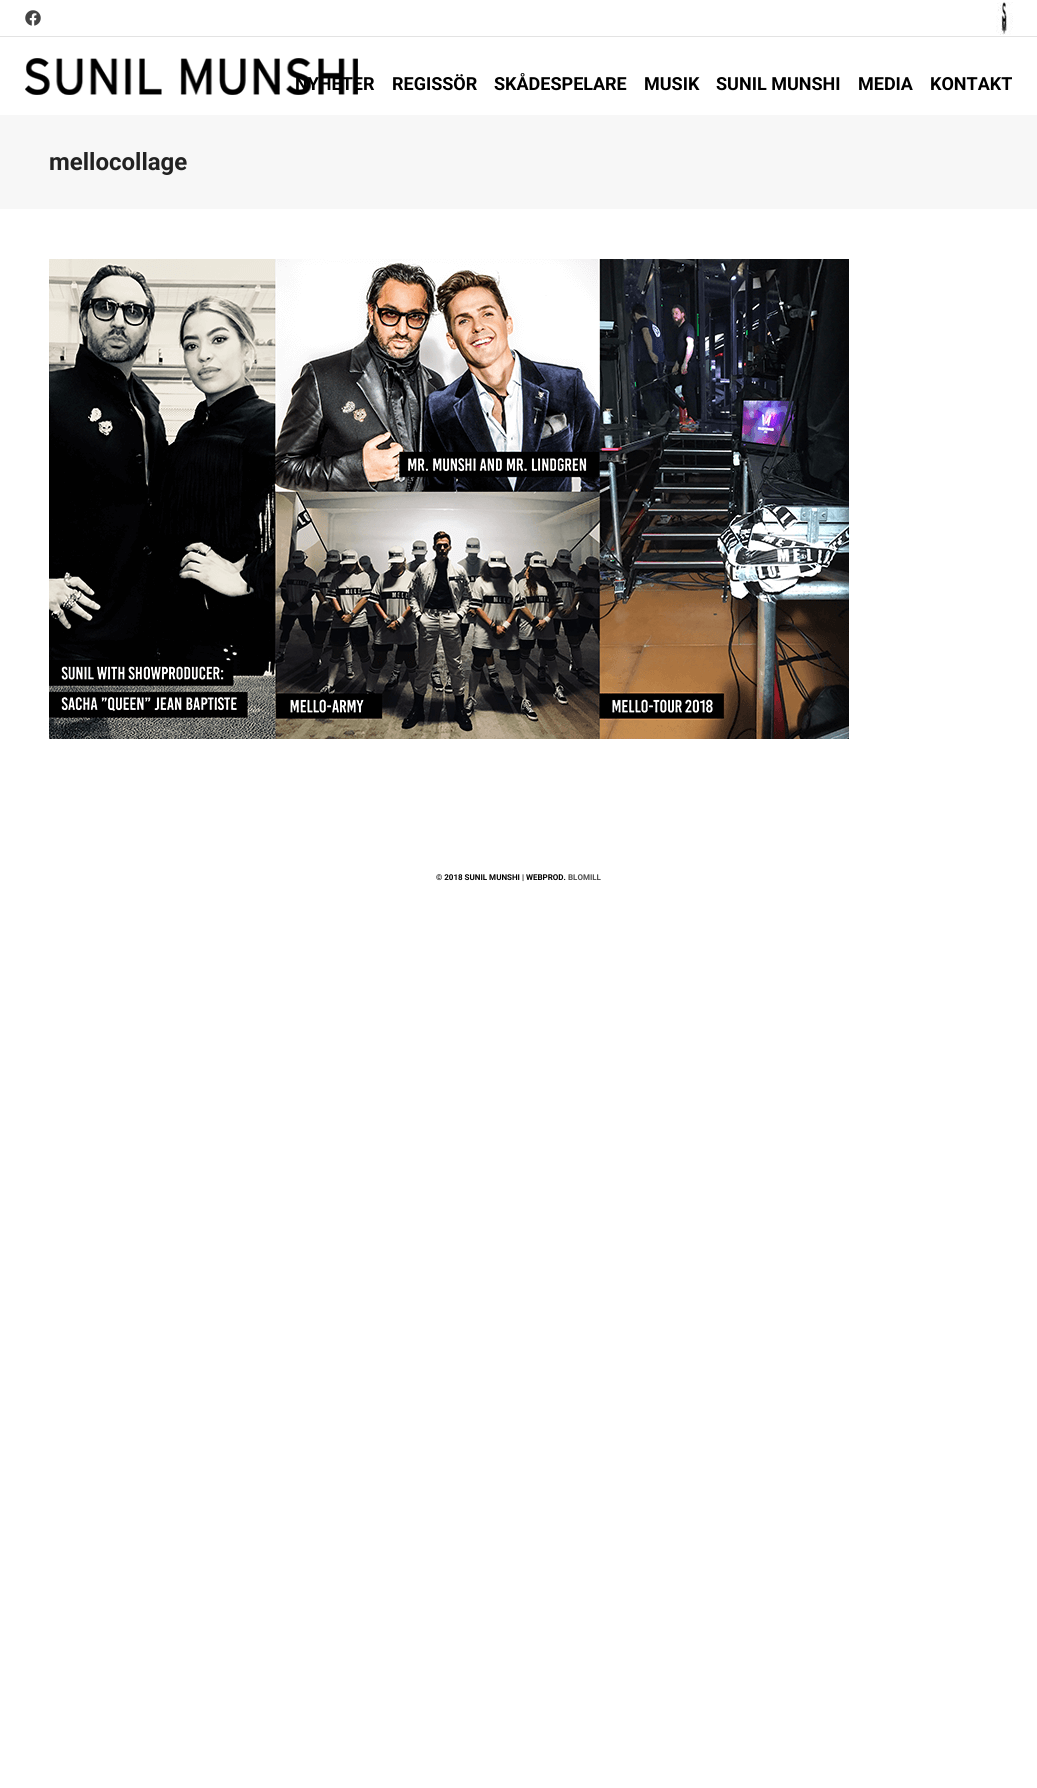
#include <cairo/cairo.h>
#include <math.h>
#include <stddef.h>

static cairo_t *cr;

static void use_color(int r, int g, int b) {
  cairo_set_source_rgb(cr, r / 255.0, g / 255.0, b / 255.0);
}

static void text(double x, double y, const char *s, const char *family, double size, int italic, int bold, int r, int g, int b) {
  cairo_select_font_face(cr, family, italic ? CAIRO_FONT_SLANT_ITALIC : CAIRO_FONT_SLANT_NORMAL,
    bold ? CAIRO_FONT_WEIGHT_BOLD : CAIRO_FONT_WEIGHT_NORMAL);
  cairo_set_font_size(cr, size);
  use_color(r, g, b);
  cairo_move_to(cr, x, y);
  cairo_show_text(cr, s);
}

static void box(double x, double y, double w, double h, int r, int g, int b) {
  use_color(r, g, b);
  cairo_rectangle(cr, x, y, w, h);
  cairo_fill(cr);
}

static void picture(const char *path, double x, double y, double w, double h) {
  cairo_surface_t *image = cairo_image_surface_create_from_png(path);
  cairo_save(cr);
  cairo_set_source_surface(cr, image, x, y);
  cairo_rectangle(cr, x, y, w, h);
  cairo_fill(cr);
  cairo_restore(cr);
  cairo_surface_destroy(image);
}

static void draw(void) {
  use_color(255, 255, 255);
  cairo_paint(cr);
  box(0, 36, 1037, 1, 227, 227, 227);
  picture("img_01.png", 25, 10, 16, 16);
  picture("img_02.png", 996, 2, 17, 33);
  box(0, 115, 1037, 94, 247, 247, 247);
  picture("img_04.png", 49, 259, 800, 480);
  text(295, 90, "NYHETER", "Roboto", 18, 0, 1, 0, 0, 0);
  picture("img_03.png", 25, 58, 333, 37);
  text(392, 90, "REGISSÖR", "Roboto", 18, 0, 1, 0, 0, 0);
  text(494, 90, "SKÅDESPELARE", "Roboto", 18, 0, 1, 0, 0, 0);
  text(644, 90, "MUSIK", "Roboto", 18, 0, 1, 0, 0, 0);
  text(716, 90, "SUNIL MUNSHI", "Roboto", 18, 0, 1, 0, 0, 0);
  text(858, 90, "MEDIA", "Roboto", 18, 0, 1, 0, 0, 0);
  text(930, 90, "KONTAKT", "Roboto", 18, 0, 1, 0, 0, 0);
  text(49, 170, "mellocollage", "Roboto", 24, 0, 1, 34, 34, 34);
  text(436, 880, "© 2018 SUNIL MUNSHI | WEBPROD.", "Roboto", 8, 0, 1, 0, 0, 0);
  text(568, 880, "BLOMILL", "Roboto", 8, 0, 1, 79, 79, 79);
}

int main(void) {
  cairo_surface_t *surface = cairo_image_surface_create(CAIRO_FORMAT_RGB24, 1037, 1788);
  cr = cairo_create(surface);
  cairo_font_options_t *options = cairo_font_options_create();
  cairo_font_options_set_hint_metrics(options, CAIRO_HINT_METRICS_OFF);
  cairo_font_options_set_hint_style(options, CAIRO_HINT_STYLE_NONE);
  cairo_set_font_options(cr, options);
  cairo_set_miter_limit(cr, 4);
  draw();
  cairo_surface_write_to_png(surface, "out.png");
  cairo_font_options_destroy(options);
  cairo_destroy(cr);
  cairo_surface_destroy(surface);
  return 0;
}
